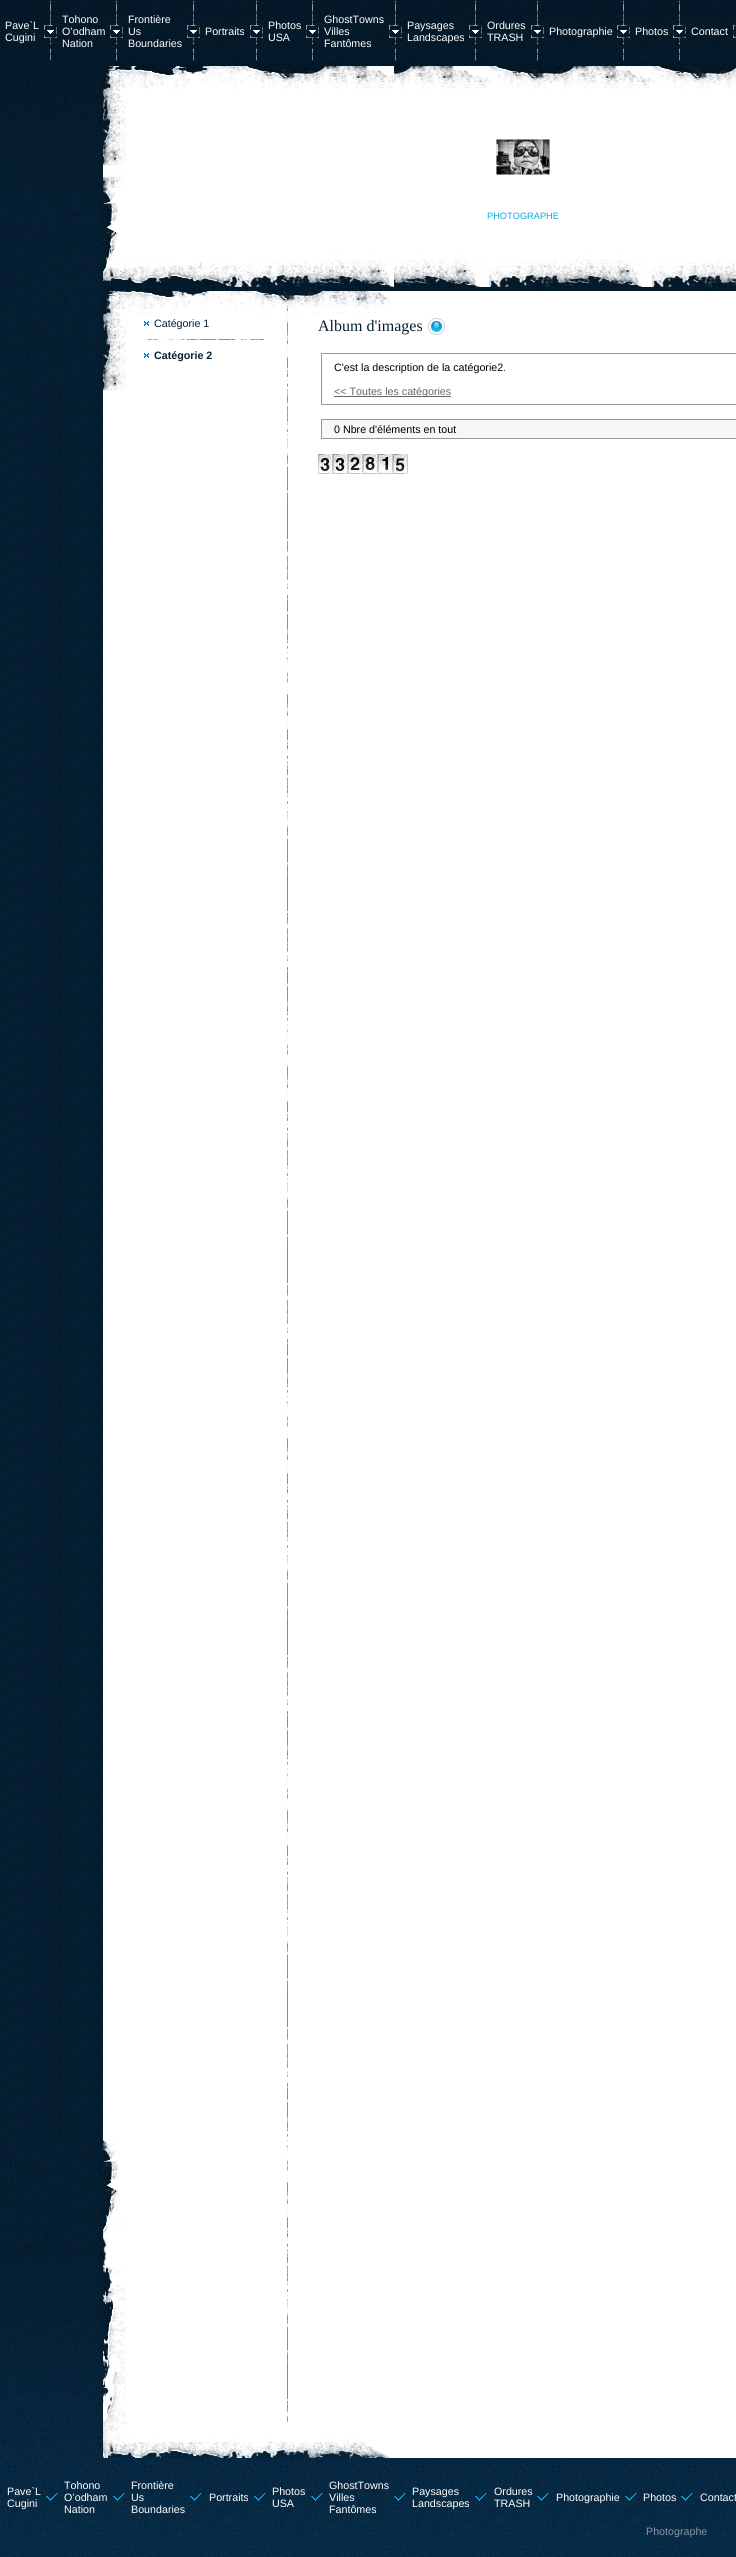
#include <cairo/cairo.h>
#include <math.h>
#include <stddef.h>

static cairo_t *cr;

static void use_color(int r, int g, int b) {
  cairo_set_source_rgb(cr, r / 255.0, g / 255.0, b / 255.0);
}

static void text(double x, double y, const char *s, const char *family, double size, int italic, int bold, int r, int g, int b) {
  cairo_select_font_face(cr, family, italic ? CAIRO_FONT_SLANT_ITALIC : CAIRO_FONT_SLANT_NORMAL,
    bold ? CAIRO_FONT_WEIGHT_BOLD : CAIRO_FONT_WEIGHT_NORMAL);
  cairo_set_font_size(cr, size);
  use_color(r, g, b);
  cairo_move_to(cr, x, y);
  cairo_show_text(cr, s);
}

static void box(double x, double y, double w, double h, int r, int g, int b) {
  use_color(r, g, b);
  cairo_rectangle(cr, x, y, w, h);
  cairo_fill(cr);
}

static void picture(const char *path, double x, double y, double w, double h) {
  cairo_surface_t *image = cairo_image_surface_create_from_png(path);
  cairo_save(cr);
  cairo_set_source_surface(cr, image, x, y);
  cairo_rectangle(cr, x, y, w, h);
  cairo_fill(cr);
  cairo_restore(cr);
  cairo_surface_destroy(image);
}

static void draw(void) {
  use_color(255, 255, 255);
  cairo_paint(cr);
  picture("img_01.png", 0, 0, 736, 61);
  picture("img_02.png", 44, 0, 13, 61);
  picture("img_03.png", 110, 0, 13, 61);
  picture("img_04.png", 187, 0, 13, 61);
  picture("img_03.png", 250, 0, 13, 61);
  picture("img_05.png", 306, 0, 13, 61);
  picture("img_06.png", 389, 0, 13, 61);
  picture("img_07.png", 469, 0, 13, 61);
  picture("img_08.png", 531, 0, 13, 61);
  picture("img_09.png", 617, 0, 13, 61);
  picture("img_10.png", 673, 0, 13, 61);
  picture("img_11.png", 733, 25, 3, 13);
  picture("img_12.png", 394, 61, 342, 230);
  picture("img_13.png", 0, 61, 394, 230);
  picture("img_14.png", 496, 139, 54, 36);
  picture("img_15.png", 0, 291, 409, 26);
  picture("img_16.png", 0, 391, 126, 1747);
  picture("img_17.png", 0, 317, 126, 74);
  picture("img_18.png", 0, 2138, 127, 284);
  picture("img_19.png", 144, 321, 5, 5);
  picture("img_20.png", 144, 339, 120, 1);
  picture("img_19.png", 144, 353, 5, 5);
  picture("img_21.png", 287, 317, 1, 2105);
  picture("img_22.png", 428, 318, 17, 17);
  cairo_rectangle(cr, 321.5, 353.5, 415, 51);
  use_color(150, 150, 150);
  cairo_set_line_width(cr, 1);
  cairo_stroke(cr);
  box(334, 396, 117, 1, 102, 102, 102);
  use_color(247, 247, 247);
  cairo_rectangle(cr, 321.5, 419.5, 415, 19);
  cairo_fill_preserve(cr);
  use_color(150, 150, 150);
  cairo_stroke(cr);
  picture("img_23.png", 318, 454, 90, 20);
  picture("img_24.png", 0, 2422, 390, 36);
  picture("img_25.png", 0, 2458, 736, 99);
  picture("img_26.png", 46, 2493, 13, 8);
  picture("img_27.png", 113, 2493, 13, 8);
  picture("img_28.png", 190, 2493, 13, 8);
  picture("img_29.png", 254, 2493, 13, 8);
  picture("img_30.png", 311, 2493, 13, 8);
  picture("img_28.png", 394, 2493, 13, 8);
  picture("img_31.png", 475, 2493, 13, 8);
  picture("img_32.png", 537, 2493, 13, 8);
  picture("img_33.png", 625, 2493, 13, 8);
  picture("img_34.png", 681, 2493, 13, 8);
  text(5, 29, "Pave`L", "Liberation Sans", 10.7, 0, 0, 255, 255, 255);
  text(5, 41, "Cugini", "Liberation Sans", 10.7, 0, 0, 255, 255, 255);
  text(62, 23, "Tohono", "Liberation Sans", 10.7, 0, 0, 255, 255, 255);
  text(62, 35, "O’odham", "Liberation Sans", 10.7, 0, 0, 255, 255, 255);
  text(62, 47, "Nation", "Liberation Sans", 10.7, 0, 0, 255, 255, 255);
  text(128, 23, "Frontière", "Liberation Sans", 10.7, 0, 0, 255, 255, 255);
  text(128, 35, "Us", "Liberation Sans", 10.7, 0, 0, 255, 255, 255);
  text(128, 47, "Boundaries", "Liberation Sans", 10.7, 0, 0, 255, 255, 255);
  text(205, 35, "Portraits", "Liberation Sans", 10.7, 0, 0, 255, 255, 255);
  text(268, 29, "Photos", "Liberation Sans", 10.7, 0, 0, 255, 255, 255);
  text(268, 41, "USA", "Liberation Sans", 10.7, 0, 0, 255, 255, 255);
  text(324, 23, "GhostTowns", "Liberation Sans", 10.7, 0, 0, 255, 255, 255);
  text(324, 35, "Villes", "Liberation Sans", 10.7, 0, 0, 255, 255, 255);
  text(324, 47, "Fantômes", "Liberation Sans", 10.7, 0, 0, 255, 255, 255);
  text(407, 29, "Paysages", "Liberation Sans", 10.7, 0, 0, 255, 255, 255);
  text(407, 41, "Landscapes", "Liberation Sans", 10.7, 0, 0, 255, 255, 255);
  text(487, 29, "Ordures", "Liberation Sans", 10.7, 0, 0, 255, 255, 255);
  text(487, 41, "TRASH", "Liberation Sans", 10.7, 0, 0, 255, 255, 255);
  text(549, 35, "Photographie", "Liberation Sans", 10.7, 0, 0, 255, 255, 255);
  text(635, 35, "Photos", "Liberation Sans", 10.7, 0, 0, 255, 255, 255);
  text(691, 35, "Contact", "Liberation Sans", 10.7, 0, 0, 255, 255, 255);
  text(487, 219, "PHOTOGRAPHE", "Liberation Sans", 9.25, 0, 0, 6, 170, 222);
  text(154, 327, "Catégorie 1", "Liberation Sans", 10.7, 0, 0, 6, 31, 48);
  text(154, 359, "Catégorie 2", "Liberation Sans", 10.7, 0, 1, 6, 31, 48);
  text(318, 331, "Album d'images", "Liberation Serif", 16, 0, 0, 6, 31, 48);
  text(334, 371, "C'est la description de la catégorie2.", "Liberation Sans", 10.7, 0, 0, 0, 0, 0);
  text(334, 395, "<< Toutes les catégories", "Liberation Sans", 10.7, 0, 0, 102, 102, 102);
  text(334, 433, "0 Nbre d'éléments en tout", "Liberation Sans", 10.7, 0, 0, 0, 0, 0);
  text(7, 2495, "Pave`L", "Liberation Sans", 10.7, 0, 0, 255, 255, 255);
  text(7, 2507, "Cugini", "Liberation Sans", 10.7, 0, 0, 255, 255, 255);
  text(64, 2489, "Tohono", "Liberation Sans", 10.7, 0, 0, 255, 255, 255);
  text(64, 2501, "O’odham", "Liberation Sans", 10.7, 0, 0, 255, 255, 255);
  text(64, 2513, "Nation", "Liberation Sans", 10.7, 0, 0, 255, 255, 255);
  text(131, 2489, "Frontière", "Liberation Sans", 10.7, 0, 0, 255, 255, 255);
  text(131, 2501, "Us", "Liberation Sans", 10.7, 0, 0, 255, 255, 255);
  text(131, 2513, "Boundaries", "Liberation Sans", 10.7, 0, 0, 255, 255, 255);
  text(209, 2501, "Portraits", "Liberation Sans", 10.7, 0, 0, 255, 255, 255);
  text(272, 2495, "Photos", "Liberation Sans", 10.7, 0, 0, 255, 255, 255);
  text(272, 2507, "USA", "Liberation Sans", 10.7, 0, 0, 255, 255, 255);
  text(329, 2489, "GhostTowns", "Liberation Sans", 10.7, 0, 0, 255, 255, 255);
  text(329, 2501, "Villes", "Liberation Sans", 10.7, 0, 0, 255, 255, 255);
  text(329, 2513, "Fantômes", "Liberation Sans", 10.7, 0, 0, 255, 255, 255);
  text(412, 2495, "Paysages", "Liberation Sans", 10.7, 0, 0, 255, 255, 255);
  text(412, 2507, "Landscapes", "Liberation Sans", 10.7, 0, 0, 255, 255, 255);
  text(494, 2495, "Ordures", "Liberation Sans", 10.7, 0, 0, 255, 255, 255);
  text(494, 2507, "TRASH", "Liberation Sans", 10.7, 0, 0, 255, 255, 255);
  text(556, 2501, "Photographie", "Liberation Sans", 10.7, 0, 0, 255, 255, 255);
  text(643, 2501, "Photos", "Liberation Sans", 10.7, 0, 0, 255, 255, 255);
  text(700, 2501, "Contact", "Liberation Sans", 10.7, 0, 0, 255, 255, 255);
  text(646, 2535, "Photographe", "Liberation Sans", 10.7, 0, 0, 135, 148, 161);
}

int main(void) {
  cairo_surface_t *surface = cairo_image_surface_create(CAIRO_FORMAT_RGB24, 736, 2557);
  cr = cairo_create(surface);
  cairo_font_options_t *options = cairo_font_options_create();
  cairo_font_options_set_hint_metrics(options, CAIRO_HINT_METRICS_OFF);
  cairo_font_options_set_hint_style(options, CAIRO_HINT_STYLE_NONE);
  cairo_set_font_options(cr, options);
  cairo_set_miter_limit(cr, 4);
  draw();
  cairo_surface_write_to_png(surface, "out.png");
  cairo_font_options_destroy(options);
  cairo_destroy(cr);
  cairo_surface_destroy(surface);
  return 0;
}
